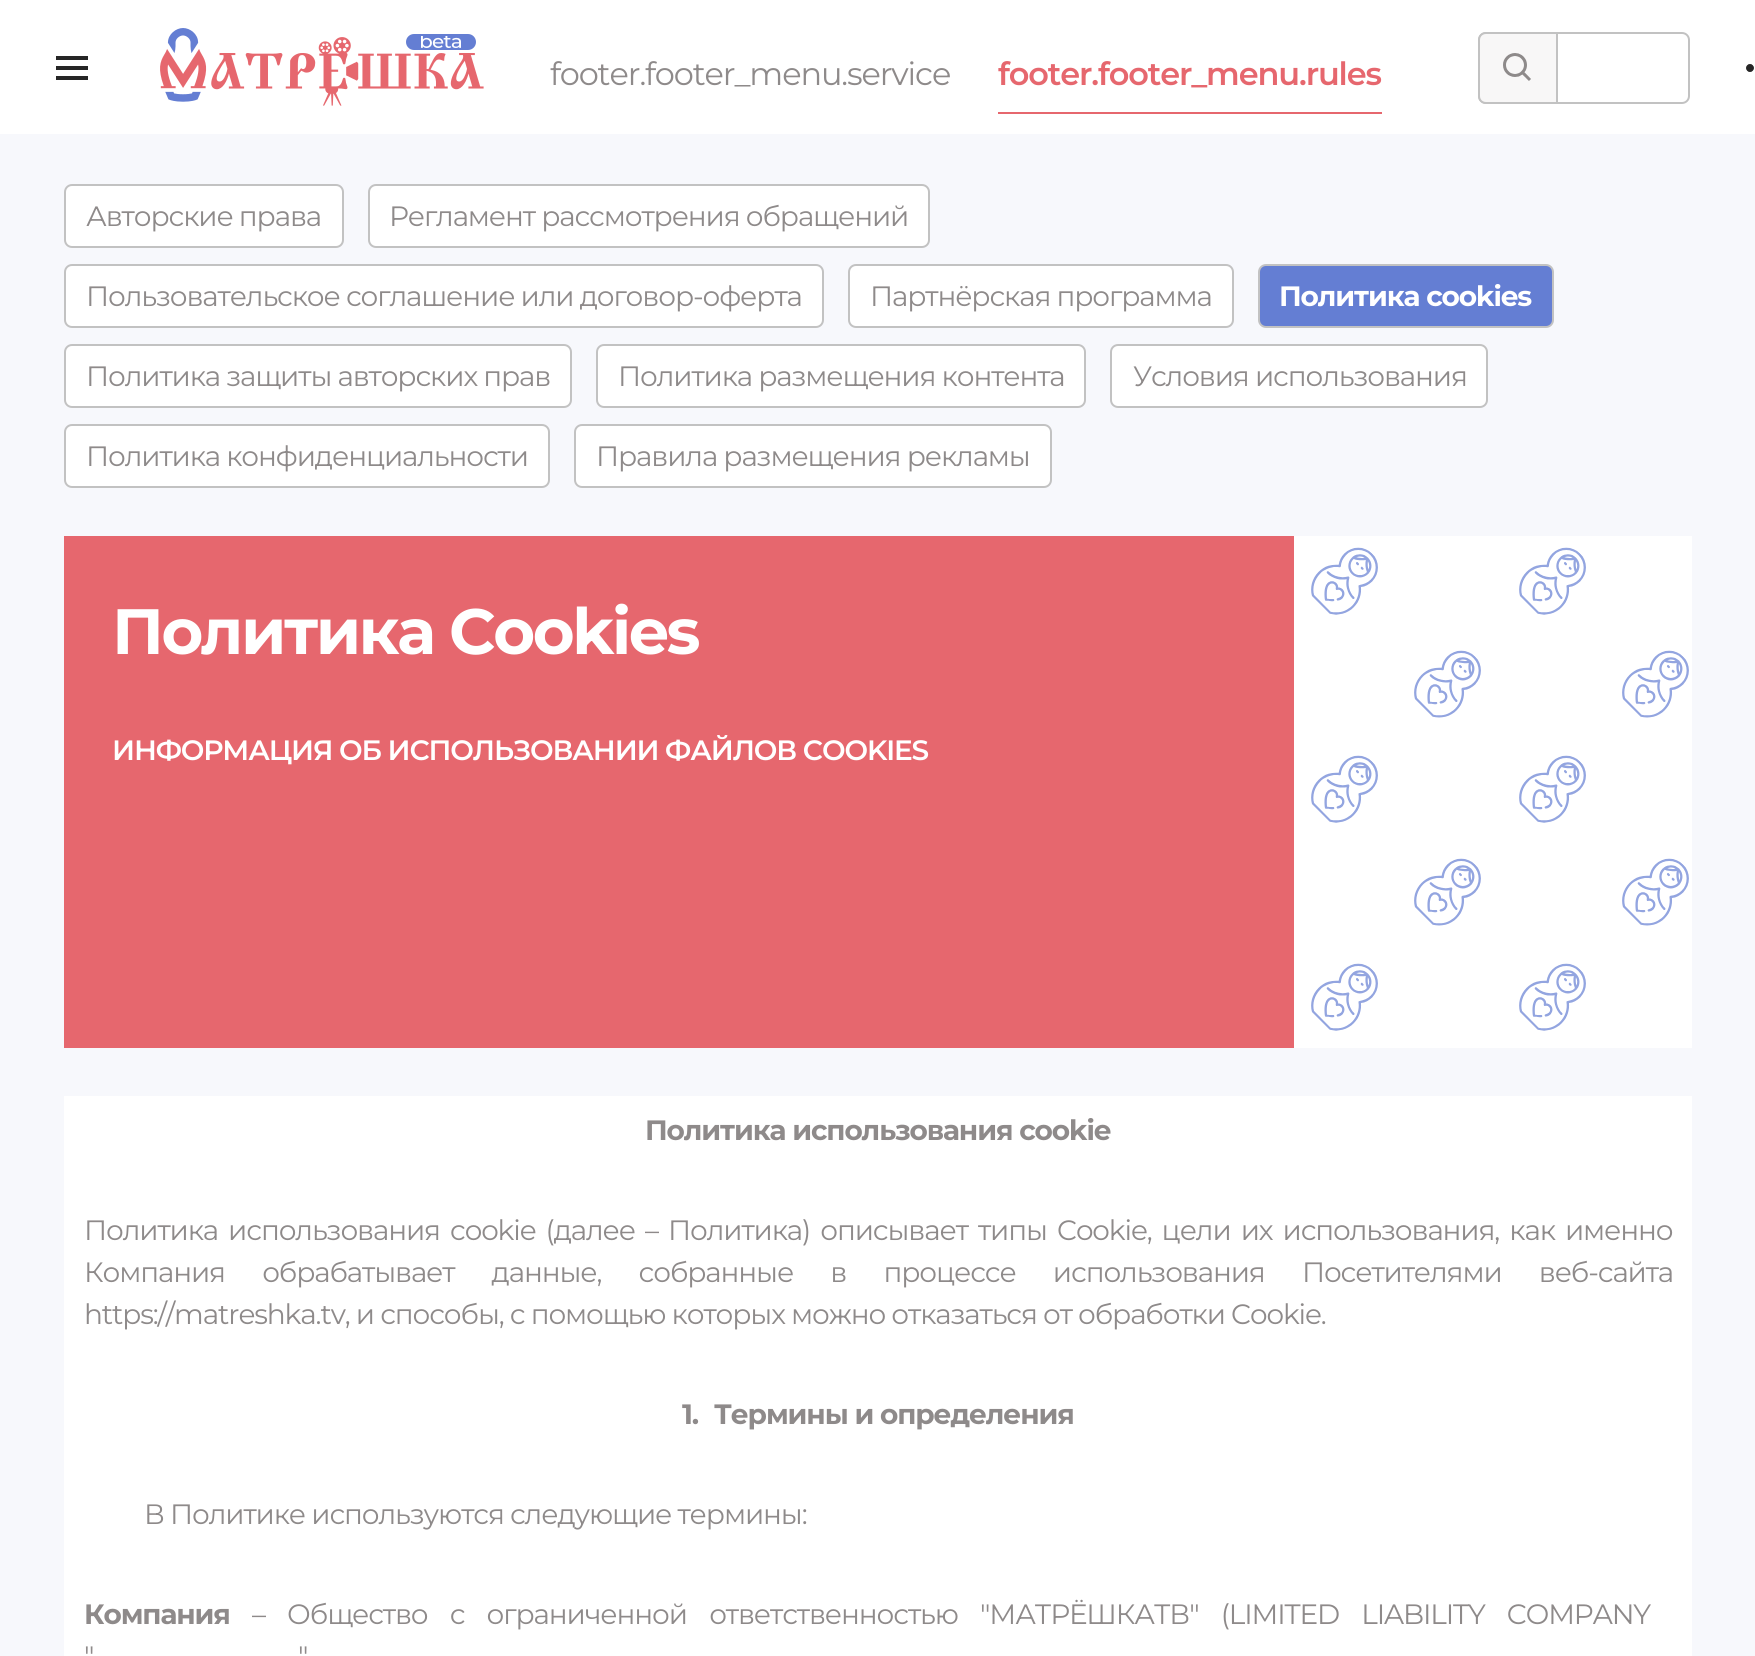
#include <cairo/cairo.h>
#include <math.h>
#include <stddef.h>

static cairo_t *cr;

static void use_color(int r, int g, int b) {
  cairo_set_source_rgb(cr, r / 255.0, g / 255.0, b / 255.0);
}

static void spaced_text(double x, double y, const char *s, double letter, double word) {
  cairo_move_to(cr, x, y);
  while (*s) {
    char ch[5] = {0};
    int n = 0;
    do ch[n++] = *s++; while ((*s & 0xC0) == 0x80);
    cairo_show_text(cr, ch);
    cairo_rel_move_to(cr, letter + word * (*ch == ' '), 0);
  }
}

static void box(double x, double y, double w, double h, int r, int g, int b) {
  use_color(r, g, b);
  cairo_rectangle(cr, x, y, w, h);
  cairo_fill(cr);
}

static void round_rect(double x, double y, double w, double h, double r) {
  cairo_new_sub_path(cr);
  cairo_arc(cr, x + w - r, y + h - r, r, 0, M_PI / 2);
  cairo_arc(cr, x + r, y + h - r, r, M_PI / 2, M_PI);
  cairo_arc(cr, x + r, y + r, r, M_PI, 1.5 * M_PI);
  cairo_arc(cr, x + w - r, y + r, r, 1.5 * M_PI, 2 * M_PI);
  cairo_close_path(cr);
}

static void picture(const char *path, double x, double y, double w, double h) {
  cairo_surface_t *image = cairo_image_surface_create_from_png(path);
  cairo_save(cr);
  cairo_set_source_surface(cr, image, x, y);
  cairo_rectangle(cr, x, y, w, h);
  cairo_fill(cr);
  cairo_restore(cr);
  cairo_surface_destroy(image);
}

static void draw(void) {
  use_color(247, 248, 252);
  cairo_paint(cr);
  box(0, 0, 1755, 134, 255, 255, 255);
  picture("img_01.png", 56, 56, 32, 24);
  picture("img_02.png", 160, 28, 324, 78);
  box(998, 112, 384, 2, 230, 103, 110);
  round_rect(1479, 33, 210, 70, 7);
  use_color(194, 194, 194);
  cairo_stroke(cr);
  use_color(248, 247, 247);
  cairo_new_path(cr);
  cairo_move_to(cr, 1486, 33);
  cairo_line_to(cr, 1557, 33);
  cairo_line_to(cr, 1557, 103);
  cairo_line_to(cr, 1486, 103);
  cairo_curve_to(cr, 1482, 103, 1479, 100, 1479, 96);
  cairo_line_to(cr, 1479, 40);
  cairo_curve_to(cr, 1479, 36, 1482, 33, 1486, 33);
  cairo_close_path(cr);
  cairo_fill_preserve(cr);
  use_color(194, 194, 194);
  cairo_stroke(cr);
  picture("img_03.png", 1503, 53, 28, 28);
  picture("img_04.png", 1746, 64, 8, 8);
  use_color(255, 255, 255);
  round_rect(65, 185, 278, 62, 7);
  cairo_fill_preserve(cr);
  use_color(194, 194, 194);
  cairo_stroke(cr);
  use_color(255, 255, 255);
  round_rect(369, 185, 560, 62, 7);
  cairo_fill_preserve(cr);
  use_color(194, 194, 194);
  cairo_stroke(cr);
  use_color(255, 255, 255);
  round_rect(65, 265, 758, 62, 7);
  cairo_fill_preserve(cr);
  use_color(194, 194, 194);
  cairo_stroke(cr);
  use_color(255, 255, 255);
  round_rect(849, 265, 384, 62, 7);
  cairo_fill_preserve(cr);
  use_color(194, 194, 194);
  cairo_stroke(cr);
  use_color(100, 126, 211);
  round_rect(1259, 265, 294, 62, 7);
  cairo_fill_preserve(cr);
  use_color(194, 194, 194);
  cairo_stroke(cr);
  use_color(255, 255, 255);
  round_rect(65, 345, 506, 62, 7);
  cairo_fill_preserve(cr);
  use_color(194, 194, 194);
  cairo_stroke(cr);
  use_color(255, 255, 255);
  round_rect(597, 345, 488, 62, 7);
  cairo_fill_preserve(cr);
  use_color(194, 194, 194);
  cairo_stroke(cr);
  use_color(255, 255, 255);
  round_rect(1111, 345, 376, 62, 7);
  cairo_fill_preserve(cr);
  use_color(194, 194, 194);
  cairo_stroke(cr);
  use_color(255, 255, 255);
  round_rect(65, 425, 484, 62, 7);
  cairo_fill_preserve(cr);
  use_color(194, 194, 194);
  cairo_stroke(cr);
  use_color(255, 255, 255);
  round_rect(575, 425, 476, 62, 7);
  cairo_fill_preserve(cr);
  use_color(194, 194, 194);
  cairo_stroke(cr);
  box(64, 536, 1230, 512, 230, 103, 110);
  box(1294, 536, 398, 512, 255, 255, 255);
  picture("img_05.png", 1311, 547, 378, 484);
  box(64, 1096, 1628, 560, 255, 255, 255);
  cairo_select_font_face(cr, "Montserrat", CAIRO_FONT_SLANT_NORMAL, CAIRO_FONT_WEIGHT_NORMAL);
  cairo_set_font_size(cr, 32);
  use_color(142, 138, 138);
  spaced_text(550, 85, "footer.footer_menu.service", -1.12, 0);
  cairo_select_font_face(cr, "Montserrat SemiBold", CAIRO_FONT_SLANT_NORMAL, CAIRO_FONT_WEIGHT_NORMAL);
  use_color(230, 103, 110);
  spaced_text(998, 85, "footer.footer_menu.rules", -1.12, 0);
  cairo_select_font_face(cr, "Montserrat", CAIRO_FONT_SLANT_NORMAL, CAIRO_FONT_WEIGHT_NORMAL);
  cairo_set_font_size(cr, 28);
  use_color(142, 138, 138);
  spaced_text(86, 226, "Авторские права", -1.12, 0);
  spaced_text(389, 226, "Регламент рассмотрения обращений", -1.12, 0);
  spaced_text(86, 306, "Пользовательское соглашение или договор-оферта", -1.12, 0);
  spaced_text(870, 306, "Партнёрская программа", -1.12, 0);
  cairo_select_font_face(cr, "Montserrat", CAIRO_FONT_SLANT_NORMAL, CAIRO_FONT_WEIGHT_BOLD);
  use_color(255, 255, 255);
  spaced_text(1279, 306, "Политика cookies", -1.12, 0);
  cairo_select_font_face(cr, "Montserrat", CAIRO_FONT_SLANT_NORMAL, CAIRO_FONT_WEIGHT_NORMAL);
  use_color(142, 138, 138);
  spaced_text(86, 386, "Политика защиты авторских прав", -1.12, 0);
  spaced_text(618, 386, "Политика размещения контента", -1.12, 0);
  spaced_text(1133, 386, "Условия использования", -1.12, 0);
  spaced_text(86, 466, "Политика конфиденциальности", -1.12, 0);
  spaced_text(596, 466, "Правила размещения рекламы", -1.12, 0);
  cairo_select_font_face(cr, "Montserrat", CAIRO_FONT_SLANT_NORMAL, CAIRO_FONT_WEIGHT_BOLD);
  cairo_set_font_size(cr, 64);
  use_color(255, 255, 255);
  spaced_text(112, 654, "Политика Cookies", -2.5, 0);
  cairo_select_font_face(cr, "Montserrat SemiBold", CAIRO_FONT_SLANT_NORMAL, CAIRO_FONT_WEIGHT_NORMAL);
  cairo_set_font_size(cr, 28);
  spaced_text(112, 760, "ИНФОРМАЦИЯ ОБ ИСПОЛЬЗОВАНИИ ФАЙЛОВ COOKIES", -1.12, 0);
  cairo_select_font_face(cr, "Montserrat", CAIRO_FONT_SLANT_NORMAL, CAIRO_FONT_WEIGHT_BOLD);
  use_color(142, 138, 138);
  spaced_text(645, 1140, "Политика использования cookie", -1.12, 0);
  cairo_select_font_face(cr, "Montserrat", CAIRO_FONT_SLANT_NORMAL, CAIRO_FONT_WEIGHT_NORMAL);
  spaced_text(84, 1240, "Политика использования cookie (далее – Политика) описывает типы Cookie, цели их использования, как именно", -1.12, 3.9);
  spaced_text(84, 1282, "Компания обрабатывает данные, собранные в процессе использования Посетителями веб-сайта", -1.12, 31);
  spaced_text(84, 1324, "https://matreshka.tv, и способы, с помощью которых можно отказаться от обработки Cookie.", -1.12, 0);
  cairo_select_font_face(cr, "Montserrat", CAIRO_FONT_SLANT_NORMAL, CAIRO_FONT_WEIGHT_BOLD);
  spaced_text(682, 1424, "1.", -1.12, 0);
  spaced_text(714, 1424, "Термины и определения", -1.12, 0);
  cairo_select_font_face(cr, "Montserrat", CAIRO_FONT_SLANT_NORMAL, CAIRO_FONT_WEIGHT_NORMAL);
  spaced_text(144, 1524, "В Политике используются следующие термины:", -1.12, 0);
  cairo_select_font_face(cr, "Montserrat", CAIRO_FONT_SLANT_NORMAL, CAIRO_FONT_WEIGHT_BOLD);
  spaced_text(84, 1624, "Компания", -1.12, 0);
  cairo_select_font_face(cr, "Montserrat", CAIRO_FONT_SLANT_NORMAL, CAIRO_FONT_WEIGHT_NORMAL);
  spaced_text(252, 1624, "– Общество с ограниченной ответственностью \"МАТРЁШКАТВ\" (LIMITED LIABILITY COMPANY", -1.12, 16);
  cairo_select_font_face(cr, "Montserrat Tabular", CAIRO_FONT_SLANT_NORMAL, CAIRO_FONT_WEIGHT_NORMAL);
  spaced_text(84, 1666, "\"", -1.12, 12);
  spaced_text(298, 1666, "\"", -1.12, 12);
}

int main(void) {
  cairo_surface_t *surface = cairo_image_surface_create(CAIRO_FORMAT_RGB24, 1755, 1656);
  cr = cairo_create(surface);
  cairo_font_options_t *options = cairo_font_options_create();
  cairo_font_options_set_hint_metrics(options, CAIRO_HINT_METRICS_OFF);
  cairo_font_options_set_hint_style(options, CAIRO_HINT_STYLE_NONE);
  cairo_set_font_options(cr, options);
  cairo_set_miter_limit(cr, 4);
  draw();
  cairo_surface_write_to_png(surface, "out.png");
  cairo_font_options_destroy(options);
  cairo_destroy(cr);
  cairo_surface_destroy(surface);
  return 0;
}
